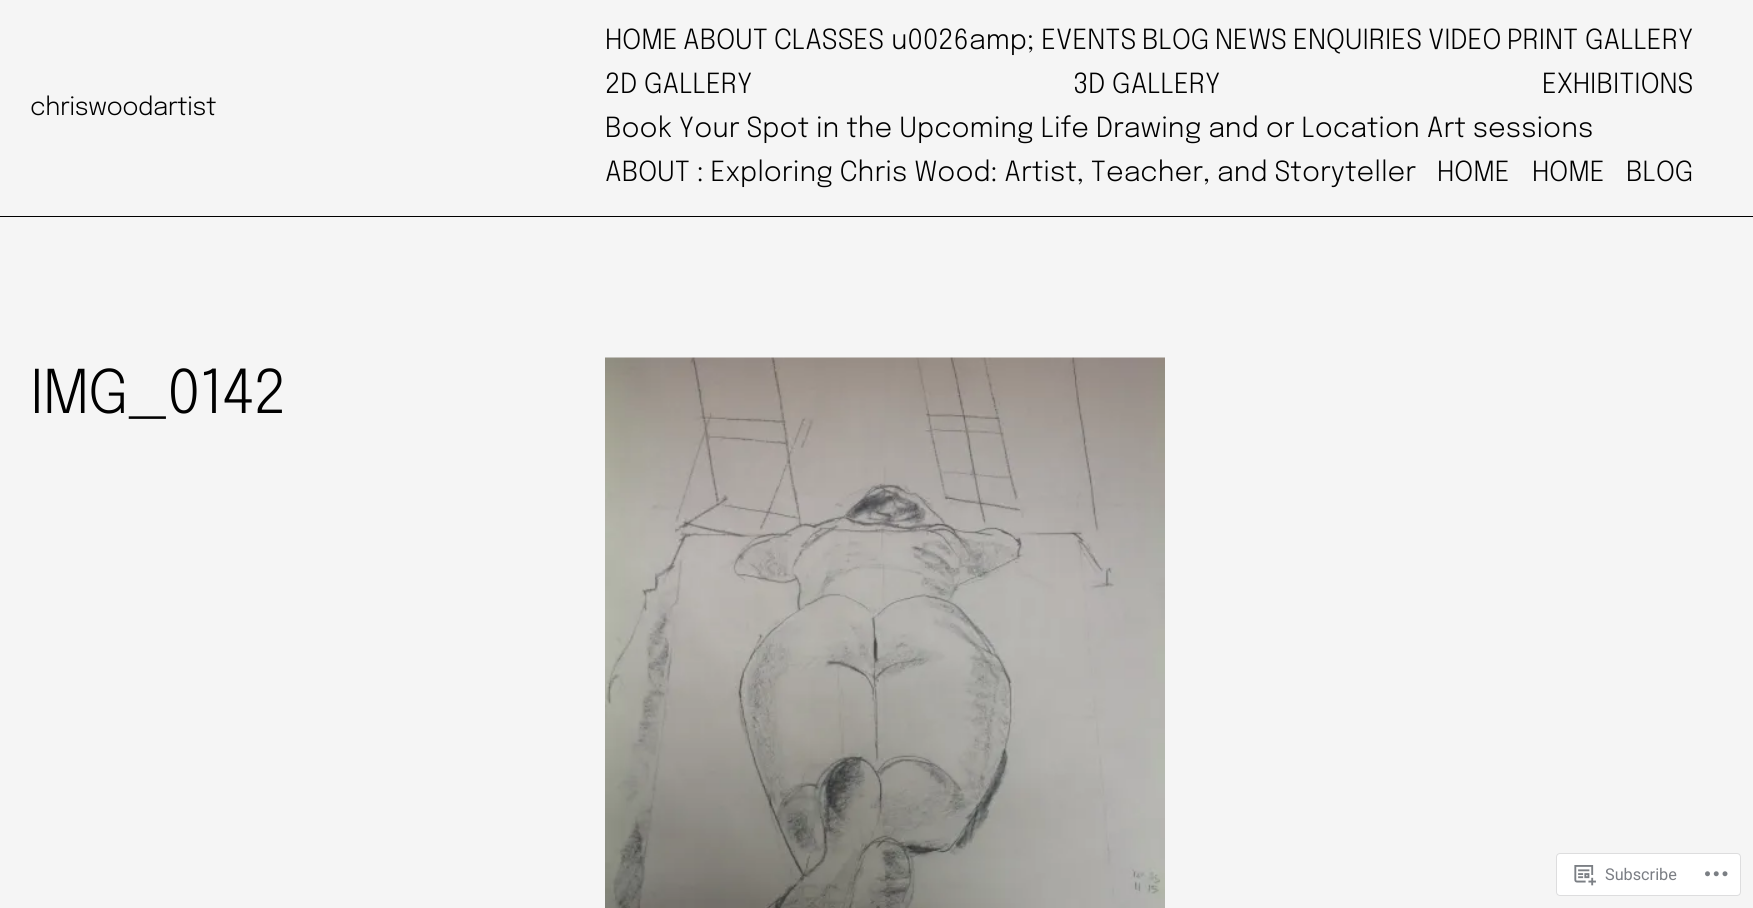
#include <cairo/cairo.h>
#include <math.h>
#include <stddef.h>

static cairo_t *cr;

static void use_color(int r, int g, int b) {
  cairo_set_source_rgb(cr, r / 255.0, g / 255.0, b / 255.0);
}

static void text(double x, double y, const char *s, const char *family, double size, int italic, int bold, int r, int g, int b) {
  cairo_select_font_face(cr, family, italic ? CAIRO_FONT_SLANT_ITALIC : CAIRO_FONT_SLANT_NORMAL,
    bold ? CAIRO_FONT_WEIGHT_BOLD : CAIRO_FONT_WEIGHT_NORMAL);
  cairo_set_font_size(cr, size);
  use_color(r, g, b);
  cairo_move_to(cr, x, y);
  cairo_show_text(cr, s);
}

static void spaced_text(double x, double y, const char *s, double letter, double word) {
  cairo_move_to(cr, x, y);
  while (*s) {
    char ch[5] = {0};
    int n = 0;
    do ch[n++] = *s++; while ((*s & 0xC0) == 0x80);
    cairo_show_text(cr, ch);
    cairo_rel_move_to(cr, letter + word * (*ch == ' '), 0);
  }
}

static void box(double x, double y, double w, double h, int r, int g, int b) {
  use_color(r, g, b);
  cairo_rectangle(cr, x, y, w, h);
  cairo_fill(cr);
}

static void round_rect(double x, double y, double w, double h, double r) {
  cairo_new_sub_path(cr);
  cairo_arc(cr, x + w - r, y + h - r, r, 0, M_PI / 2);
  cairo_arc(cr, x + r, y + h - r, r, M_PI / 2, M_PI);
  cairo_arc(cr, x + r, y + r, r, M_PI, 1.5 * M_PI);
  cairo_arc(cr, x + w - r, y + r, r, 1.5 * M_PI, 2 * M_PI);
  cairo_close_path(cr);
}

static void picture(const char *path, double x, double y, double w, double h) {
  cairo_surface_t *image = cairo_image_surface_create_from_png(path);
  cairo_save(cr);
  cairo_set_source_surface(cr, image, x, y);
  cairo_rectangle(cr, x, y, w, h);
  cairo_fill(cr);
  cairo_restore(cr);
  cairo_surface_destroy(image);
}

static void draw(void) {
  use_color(245, 245, 245);
  cairo_paint(cr);
  box(0, 216, 1753, 1, 0, 0, 0);
  picture("img_01.png", 605, 357, 560, 551);
  use_color(255, 255, 255);
  round_rect(1556.5, 853.5, 184, 42, 3.5);
  cairo_fill_preserve(cr);
  use_color(221, 221, 222);
  cairo_set_line_width(cr, 1);
  cairo_stroke(cr);
  picture("img_02.png", 1574, 865, 22, 21);
  picture("img_03.png", 1705, 871, 23, 6);
  cairo_select_font_face(cr, "Epilogue Light", CAIRO_FONT_SLANT_NORMAL, CAIRO_FONT_WEIGHT_NORMAL);
  cairo_set_font_size(cr, 25);
  use_color(0, 0, 0);
  spaced_text(30, 115, "chriswoodartist", -0.5, 0);
  text(605, 49, "HOME", "Epilogue Light", 27.6, 0, 0, 0, 0, 0);
  text(683, 49, "ABOUT", "Epilogue Light", 27.6, 0, 0, 0, 0, 0);
  text(774, 49, "CLASSES u0026amp; EVENTS", "Epilogue Light", 27.6, 0, 0, 0, 0, 0);
  text(1142, 49, "BLOG", "Epilogue Light", 27.6, 0, 0, 0, 0, 0);
  text(1215, 49, "NEWS", "Epilogue Light", 27.6, 0, 0, 0, 0, 0);
  text(1293, 49, "ENQUIRIES", "Epilogue Light", 27.6, 0, 0, 0, 0, 0);
  text(1428, 49, "VIDEO", "Epilogue Light", 27.6, 0, 0, 0, 0, 0);
  text(1507, 49, "PRINT GALLERY", "Epilogue Light", 27.6, 0, 0, 0, 0, 0);
  text(605, 93, "2D GALLERY", "Epilogue Light", 27.6, 0, 0, 0, 0, 0);
  text(1073, 93, "3D GALLERY", "Epilogue Light", 27.6, 0, 0, 0, 0, 0);
  text(1542, 93, "EXHIBITIONS", "Epilogue Light", 27.6, 0, 0, 0, 0, 0);
  text(605, 137, "Book Your Spot in the Upcoming Life Drawing and or Location Art sessions", "Epilogue Light", 27.6, 0, 0, 0, 0, 0);
  text(605, 181, "ABOUT : Exploring Chris Wood: Artist, Teacher, and Storyteller", "Epilogue Light", 27.6, 0, 0, 0, 0, 0);
  text(1437, 181, "HOME", "Epilogue Light", 27.6, 0, 0, 0, 0, 0);
  text(1532, 181, "HOME", "Epilogue Light", 27.6, 0, 0, 0, 0, 0);
  text(1626, 181, "BLOG", "Epilogue Light", 27.6, 0, 0, 0, 0, 0);
  cairo_set_font_size(cr, 60);
  spaced_text(30, 413, "IMG_0142", -1.25, 0);
  text(1605, 880, "Subscribe", "Roboto", 16.25, 0, 0, 123, 126, 132);
}

int main(void) {
  cairo_surface_t *surface = cairo_image_surface_create(CAIRO_FORMAT_RGB24, 1753, 908);
  cr = cairo_create(surface);
  cairo_font_options_t *options = cairo_font_options_create();
  cairo_font_options_set_hint_metrics(options, CAIRO_HINT_METRICS_OFF);
  cairo_font_options_set_hint_style(options, CAIRO_HINT_STYLE_NONE);
  cairo_set_font_options(cr, options);
  cairo_set_miter_limit(cr, 4);
  draw();
  cairo_surface_write_to_png(surface, "out.png");
  cairo_font_options_destroy(options);
  cairo_destroy(cr);
  cairo_surface_destroy(surface);
  return 0;
}
